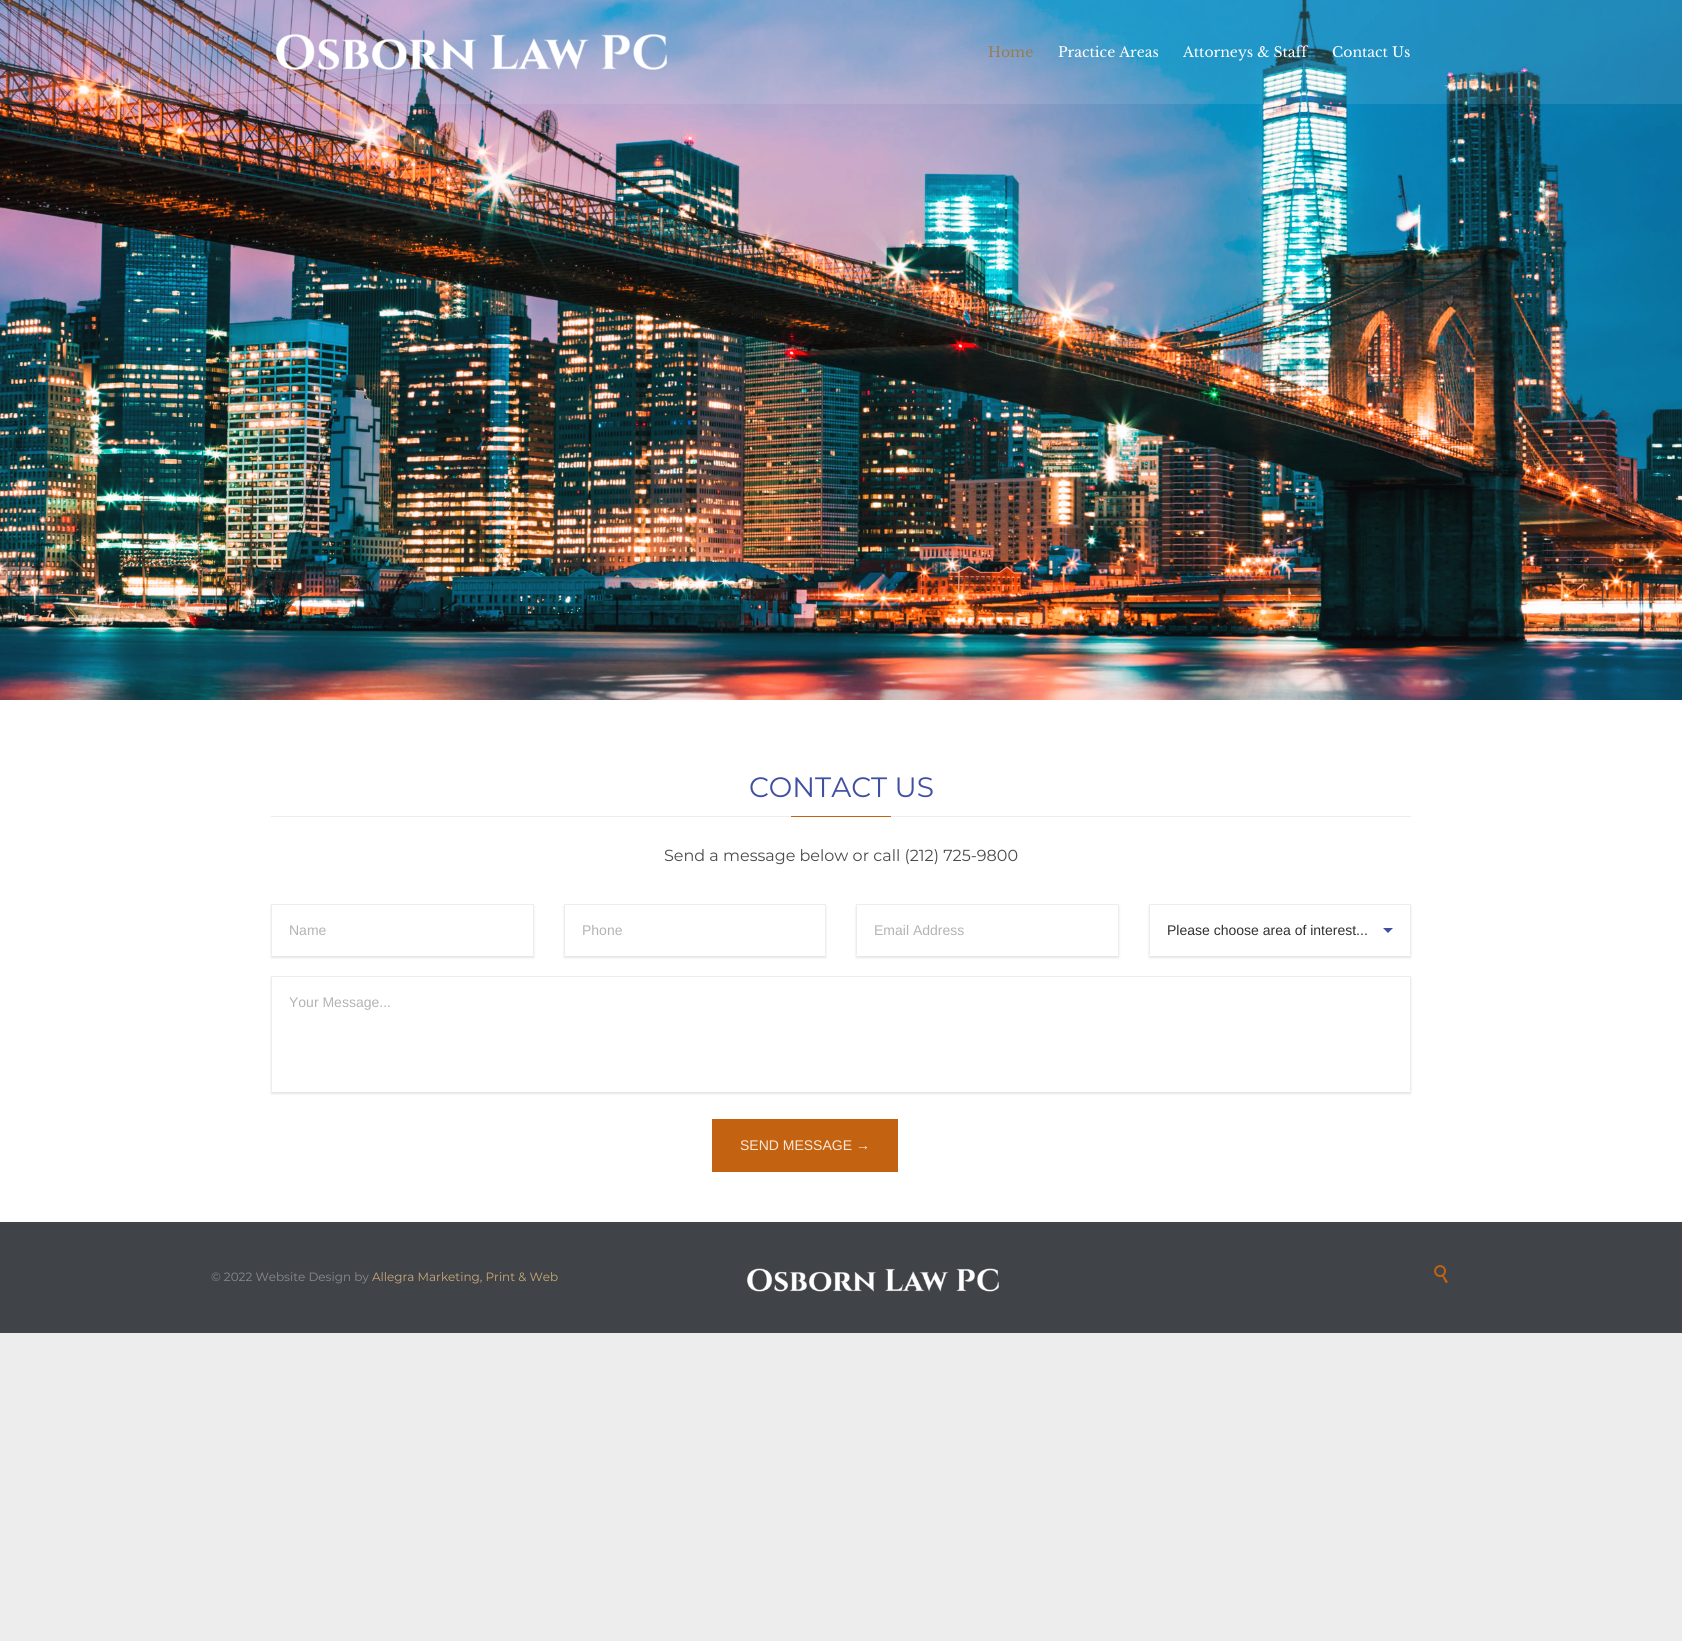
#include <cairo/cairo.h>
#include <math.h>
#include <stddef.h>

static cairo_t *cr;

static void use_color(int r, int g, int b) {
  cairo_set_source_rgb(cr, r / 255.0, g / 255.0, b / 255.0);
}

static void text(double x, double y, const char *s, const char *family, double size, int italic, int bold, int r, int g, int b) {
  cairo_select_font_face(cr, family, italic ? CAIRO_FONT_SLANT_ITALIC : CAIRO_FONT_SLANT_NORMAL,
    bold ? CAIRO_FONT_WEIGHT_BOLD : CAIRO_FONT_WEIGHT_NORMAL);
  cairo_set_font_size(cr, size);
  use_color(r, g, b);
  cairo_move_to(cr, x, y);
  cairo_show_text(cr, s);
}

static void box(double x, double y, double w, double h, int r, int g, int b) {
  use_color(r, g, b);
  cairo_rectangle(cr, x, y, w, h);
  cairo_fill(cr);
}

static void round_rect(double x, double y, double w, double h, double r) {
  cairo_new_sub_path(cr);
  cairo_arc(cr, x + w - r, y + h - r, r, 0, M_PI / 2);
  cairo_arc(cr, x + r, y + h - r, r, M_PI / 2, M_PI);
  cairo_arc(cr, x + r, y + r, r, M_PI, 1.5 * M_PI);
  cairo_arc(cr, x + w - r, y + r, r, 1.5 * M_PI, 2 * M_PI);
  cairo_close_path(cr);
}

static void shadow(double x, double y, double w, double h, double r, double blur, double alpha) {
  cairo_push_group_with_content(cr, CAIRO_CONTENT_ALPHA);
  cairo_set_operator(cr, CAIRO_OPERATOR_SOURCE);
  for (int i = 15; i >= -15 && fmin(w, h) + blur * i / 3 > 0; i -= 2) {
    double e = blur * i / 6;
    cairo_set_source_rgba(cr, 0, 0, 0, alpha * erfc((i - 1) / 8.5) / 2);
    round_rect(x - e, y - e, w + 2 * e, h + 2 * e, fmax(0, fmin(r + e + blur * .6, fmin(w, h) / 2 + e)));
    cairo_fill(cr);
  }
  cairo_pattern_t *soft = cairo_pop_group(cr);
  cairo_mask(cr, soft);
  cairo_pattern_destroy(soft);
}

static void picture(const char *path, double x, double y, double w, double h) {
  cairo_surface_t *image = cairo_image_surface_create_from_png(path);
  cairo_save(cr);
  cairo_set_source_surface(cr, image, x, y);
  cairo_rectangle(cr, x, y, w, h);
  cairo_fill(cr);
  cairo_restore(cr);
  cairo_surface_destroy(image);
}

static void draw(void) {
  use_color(237, 237, 237);
  cairo_paint(cr);
  picture("img_02.png", 0, 0, 1682, 700);
  cairo_set_source_rgba(cr, 1, 1, 1, 0.1);
  cairo_rectangle(cr, 0, 0, 1682, 104);
  cairo_fill(cr);
  picture("img_01.png", 276, 34, 392, 36);
  box(0, 700, 1682, 522, 255, 255, 255);
  box(271, 816, 1140, 1, 237, 237, 237);
  box(791, 816, 100, 1, 195, 99, 17);
  cairo_save(cr);
  cairo_set_fill_rule(cr, CAIRO_FILL_RULE_EVEN_ODD);
  cairo_new_path(cr);
  cairo_move_to(cr, 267, 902);
  cairo_line_to(cr, 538, 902);
  cairo_line_to(cr, 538, 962);
  cairo_line_to(cr, 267, 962);
  cairo_close_path(cr);
  cairo_move_to(cr, 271, 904);
  cairo_line_to(cr, 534, 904);
  cairo_line_to(cr, 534, 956);
  cairo_line_to(cr, 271, 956);
  cairo_close_path(cr);
  cairo_clip(cr);
  use_color(0, 0, 0);
  shadow(271, 906, 263, 52, 0, 1, 0.1);
  cairo_restore(cr);
  box(271, 904, 263, 1, 237, 237, 237);
  cairo_new_path(cr);
  cairo_move_to(cr, 534, 904);
  cairo_line_to(cr, 534, 956);
  cairo_line_to(cr, 533, 955);
  cairo_line_to(cr, 533, 905);
  cairo_close_path(cr);
  cairo_fill(cr);
  cairo_new_path(cr);
  cairo_move_to(cr, 271, 956);
  cairo_line_to(cr, 271, 904);
  cairo_line_to(cr, 272, 905);
  cairo_line_to(cr, 272, 955);
  cairo_close_path(cr);
  cairo_fill(cr);
  cairo_save(cr);
  cairo_set_fill_rule(cr, CAIRO_FILL_RULE_EVEN_ODD);
  cairo_new_path(cr);
  cairo_move_to(cr, 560, 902);
  cairo_line_to(cr, 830, 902);
  cairo_line_to(cr, 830, 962);
  cairo_line_to(cr, 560, 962);
  cairo_close_path(cr);
  cairo_move_to(cr, 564, 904);
  cairo_line_to(cr, 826, 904);
  cairo_line_to(cr, 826, 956);
  cairo_line_to(cr, 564, 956);
  cairo_close_path(cr);
  cairo_clip(cr);
  use_color(0, 0, 0);
  shadow(564, 906, 262, 52, 0, 1, 0.1);
  cairo_restore(cr);
  box(564, 904, 262, 1, 237, 237, 237);
  cairo_new_path(cr);
  cairo_move_to(cr, 826, 904);
  cairo_line_to(cr, 826, 956);
  cairo_line_to(cr, 825, 955);
  cairo_line_to(cr, 825, 905);
  cairo_close_path(cr);
  cairo_fill(cr);
  cairo_new_path(cr);
  cairo_move_to(cr, 564, 956);
  cairo_line_to(cr, 564, 904);
  cairo_line_to(cr, 565, 905);
  cairo_line_to(cr, 565, 955);
  cairo_close_path(cr);
  cairo_fill(cr);
  cairo_save(cr);
  cairo_set_fill_rule(cr, CAIRO_FILL_RULE_EVEN_ODD);
  cairo_new_path(cr);
  cairo_move_to(cr, 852, 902);
  cairo_line_to(cr, 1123, 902);
  cairo_line_to(cr, 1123, 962);
  cairo_line_to(cr, 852, 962);
  cairo_close_path(cr);
  cairo_move_to(cr, 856, 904);
  cairo_line_to(cr, 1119, 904);
  cairo_line_to(cr, 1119, 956);
  cairo_line_to(cr, 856, 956);
  cairo_close_path(cr);
  cairo_clip(cr);
  use_color(0, 0, 0);
  shadow(856, 906, 263, 52, 0, 1, 0.1);
  cairo_restore(cr);
  box(856, 904, 263, 1, 237, 237, 237);
  cairo_new_path(cr);
  cairo_move_to(cr, 1119, 904);
  cairo_line_to(cr, 1119, 956);
  cairo_line_to(cr, 1118, 955);
  cairo_line_to(cr, 1118, 905);
  cairo_close_path(cr);
  cairo_fill(cr);
  cairo_new_path(cr);
  cairo_move_to(cr, 856, 956);
  cairo_line_to(cr, 856, 904);
  cairo_line_to(cr, 857, 905);
  cairo_line_to(cr, 857, 955);
  cairo_close_path(cr);
  cairo_fill(cr);
  cairo_save(cr);
  cairo_set_fill_rule(cr, CAIRO_FILL_RULE_EVEN_ODD);
  cairo_new_path(cr);
  cairo_move_to(cr, 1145, 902);
  cairo_line_to(cr, 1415, 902);
  cairo_line_to(cr, 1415, 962);
  cairo_line_to(cr, 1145, 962);
  cairo_close_path(cr);
  cairo_move_to(cr, 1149, 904);
  cairo_line_to(cr, 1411, 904);
  cairo_line_to(cr, 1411, 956);
  cairo_line_to(cr, 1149, 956);
  cairo_close_path(cr);
  cairo_clip(cr);
  use_color(0, 0, 0);
  shadow(1149, 906, 262, 52, 0, 1, 0.1);
  cairo_restore(cr);
  box(1149, 904, 262, 1, 237, 237, 237);
  cairo_new_path(cr);
  cairo_move_to(cr, 1411, 904);
  cairo_line_to(cr, 1411, 956);
  cairo_line_to(cr, 1410, 955);
  cairo_line_to(cr, 1410, 905);
  cairo_close_path(cr);
  cairo_fill(cr);
  cairo_new_path(cr);
  cairo_move_to(cr, 1149, 956);
  cairo_line_to(cr, 1149, 904);
  cairo_line_to(cr, 1150, 905);
  cairo_line_to(cr, 1150, 955);
  cairo_close_path(cr);
  cairo_fill(cr);
  use_color(64, 79, 161);
  cairo_new_path(cr);
  cairo_move_to(cr, 1383, 928);
  cairo_line_to(cr, 1393, 928);
  cairo_line_to(cr, 1388, 933);
  cairo_close_path(cr);
  cairo_fill(cr);
  cairo_save(cr);
  cairo_set_fill_rule(cr, CAIRO_FILL_RULE_EVEN_ODD);
  cairo_new_path(cr);
  cairo_move_to(cr, 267, 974);
  cairo_line_to(cr, 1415, 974);
  cairo_line_to(cr, 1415, 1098);
  cairo_line_to(cr, 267, 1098);
  cairo_close_path(cr);
  cairo_move_to(cr, 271, 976);
  cairo_line_to(cr, 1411, 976);
  cairo_line_to(cr, 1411, 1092);
  cairo_line_to(cr, 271, 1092);
  cairo_close_path(cr);
  cairo_clip(cr);
  use_color(0, 0, 0);
  shadow(271, 978, 1140, 116, 0, 1, 0.1);
  cairo_restore(cr);
  box(271, 976, 1140, 1, 237, 237, 237);
  cairo_new_path(cr);
  cairo_move_to(cr, 1411, 976);
  cairo_line_to(cr, 1411, 1092);
  cairo_line_to(cr, 1410, 1091);
  cairo_line_to(cr, 1410, 977);
  cairo_close_path(cr);
  cairo_fill(cr);
  cairo_new_path(cr);
  cairo_move_to(cr, 271, 1092);
  cairo_line_to(cr, 271, 976);
  cairo_line_to(cr, 272, 977);
  cairo_line_to(cr, 272, 1091);
  cairo_close_path(cr);
  cairo_fill(cr);
  box(712, 1119, 186, 53, 195, 99, 17);
  box(0, 1222, 1682, 111, 64, 68, 73);
  picture("img_03.png", 747, 1268, 252, 24);
  picture("img_04.png", 1434, 1265, 14, 18);
  text(988, 57, "Home", "Libre Baskerville", 14, 0, 0, 155, 123, 77);
  text(1058, 57, "Practice Areas", "Libre Baskerville", 14, 0, 0, 255, 255, 255);
  text(1183, 57, "Attorneys & Staff", "Libre Baskerville", 14, 0, 0, 255, 255, 255);
  text(1332, 57, "Contact Us", "Libre Baskerville", 14, 0, 0, 255, 255, 255);
  text(749, 797, "CONTACT US", "Montserrat", 28, 0, 0, 64, 79, 161);
  text(664, 861, "Send a message below or call (212) 725-9800", "Montserrat", 16, 0, 0, 74, 74, 74);
  text(289, 935, "Name", "Liberation Sans", 14, 0, 0, 179, 179, 179);
  text(582, 935, "Phone", "Liberation Sans", 14, 0, 0, 179, 179, 179);
  text(874, 935, "Email Address", "Liberation Sans", 14, 0, 0, 179, 179, 179);
  text(1167, 935, "Please choose area of interest...", "Liberation Sans", 14, 0, 0, 48, 48, 48);
  text(289, 1007, "Your Message...", "Liberation Sans", 14, 0, 0, 179, 179, 179);
  text(740, 1150, "SEND MESSAGE →", "Liberation Sans", 14, 0, 0, 252, 232, 215);
  text(211, 1281, "© 2022 Website Design by", "Montserrat", 12, 0, 0, 137, 137, 137);
  text(372, 1281, "Allegra Marketing, Print & Web", "Montserrat", 12, 0, 0, 204, 168, 118);
}

int main(void) {
  cairo_surface_t *surface = cairo_image_surface_create(CAIRO_FORMAT_RGB24, 1682, 1641);
  cr = cairo_create(surface);
  cairo_font_options_t *options = cairo_font_options_create();
  cairo_font_options_set_hint_metrics(options, CAIRO_HINT_METRICS_OFF);
  cairo_font_options_set_hint_style(options, CAIRO_HINT_STYLE_NONE);
  cairo_set_font_options(cr, options);
  cairo_set_miter_limit(cr, 4);
  draw();
  cairo_surface_write_to_png(surface, "out.png");
  cairo_font_options_destroy(options);
  cairo_destroy(cr);
  cairo_surface_destroy(surface);
  return 0;
}
